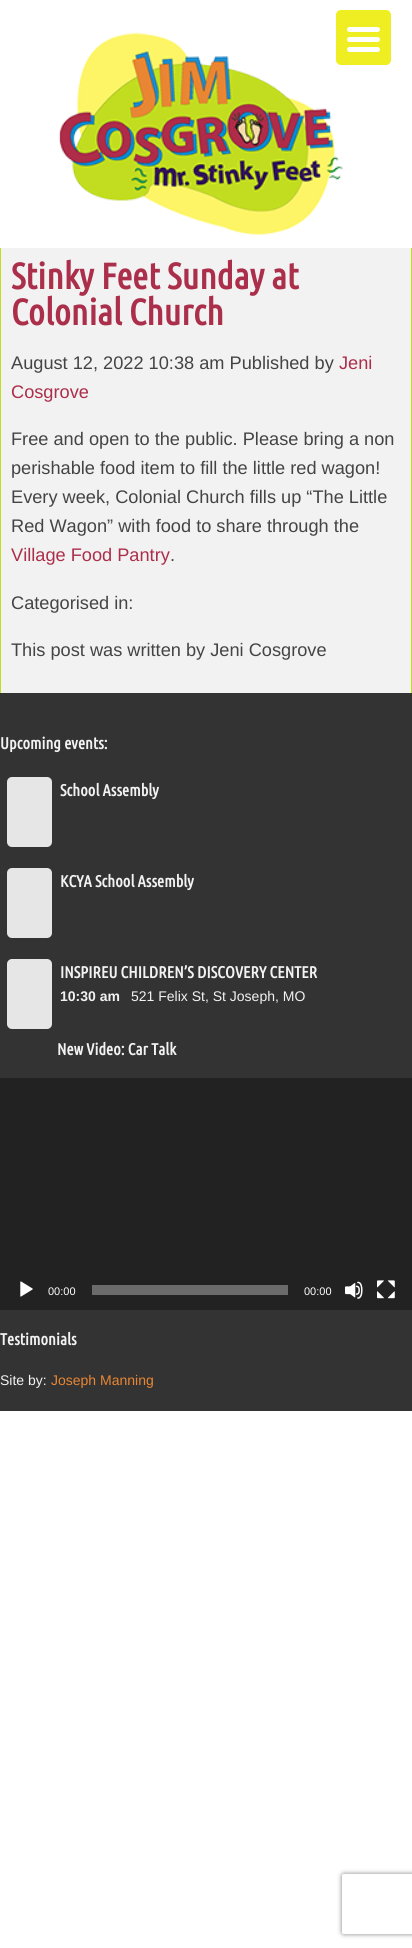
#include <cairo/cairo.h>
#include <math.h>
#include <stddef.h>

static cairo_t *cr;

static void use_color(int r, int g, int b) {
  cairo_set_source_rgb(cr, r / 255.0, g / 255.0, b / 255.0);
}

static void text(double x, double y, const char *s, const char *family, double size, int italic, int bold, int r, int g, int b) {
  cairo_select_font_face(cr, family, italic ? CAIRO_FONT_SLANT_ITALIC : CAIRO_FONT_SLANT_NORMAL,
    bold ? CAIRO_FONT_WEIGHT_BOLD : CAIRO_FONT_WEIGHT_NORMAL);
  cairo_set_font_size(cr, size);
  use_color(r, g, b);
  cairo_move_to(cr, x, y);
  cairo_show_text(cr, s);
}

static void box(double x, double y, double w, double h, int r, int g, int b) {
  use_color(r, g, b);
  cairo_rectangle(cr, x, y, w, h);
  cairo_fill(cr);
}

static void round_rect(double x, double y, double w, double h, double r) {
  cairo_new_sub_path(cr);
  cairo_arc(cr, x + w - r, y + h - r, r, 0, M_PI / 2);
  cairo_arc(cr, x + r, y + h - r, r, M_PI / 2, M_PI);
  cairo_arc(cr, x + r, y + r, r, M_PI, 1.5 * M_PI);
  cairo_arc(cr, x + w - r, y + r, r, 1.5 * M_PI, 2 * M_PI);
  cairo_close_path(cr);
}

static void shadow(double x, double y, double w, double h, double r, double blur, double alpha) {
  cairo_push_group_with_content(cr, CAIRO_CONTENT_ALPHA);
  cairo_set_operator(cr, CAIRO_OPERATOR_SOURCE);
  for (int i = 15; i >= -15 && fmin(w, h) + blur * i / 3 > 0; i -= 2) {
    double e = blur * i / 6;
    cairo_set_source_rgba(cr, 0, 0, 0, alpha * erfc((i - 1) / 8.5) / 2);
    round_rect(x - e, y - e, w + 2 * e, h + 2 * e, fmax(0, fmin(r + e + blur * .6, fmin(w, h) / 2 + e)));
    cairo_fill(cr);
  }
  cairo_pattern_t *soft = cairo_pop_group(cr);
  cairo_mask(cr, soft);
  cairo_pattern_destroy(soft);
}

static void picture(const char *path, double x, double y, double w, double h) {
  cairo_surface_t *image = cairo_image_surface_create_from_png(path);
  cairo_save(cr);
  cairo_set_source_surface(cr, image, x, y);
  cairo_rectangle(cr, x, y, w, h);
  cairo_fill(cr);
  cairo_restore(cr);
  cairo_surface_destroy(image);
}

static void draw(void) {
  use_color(255, 255, 255);
  cairo_paint(cr);
  picture("img_01.png", 58, 32, 285, 204);
  use_color(238, 238, 34);
  round_rect(336, 10, 55, 55, 5);
  cairo_fill(cr);
  use_color(255, 255, 255);
  round_rect(347, 37, 33, 5, 2.5);
  cairo_fill(cr);
  round_rect(347, 27, 33, 5, 2.5);
  cairo_fill(cr);
  round_rect(347, 47, 33, 5, 2.5);
  cairo_fill(cr);
  box(1, 248, 410, 445, 242, 242, 242);
  box(411, 248, 1, 445, 194, 221, 32);
  box(0, 248, 1, 445, 194, 221, 32);
  box(0, 693, 412, 718, 51, 51, 51);
  use_color(230, 230, 230);
  round_rect(7, 777, 45, 70, 5);
  cairo_fill(cr);
  round_rect(7, 868, 45, 70, 5);
  cairo_fill(cr);
  round_rect(7, 959, 45, 70, 5);
  cairo_fill(cr);
  box(0, 1078, 412, 232, 34, 34, 34);
  picture("img_02.png", 20, 1281, 13, 16);
  box(92, 1285, 196, 10, 107, 107, 107);
  picture("img_03.png", 345, 1281, 18, 18);
  picture("img_04.png", 377, 1280, 18, 19);
  cairo_save(cr);
  cairo_set_fill_rule(cr, CAIRO_FILL_RULE_EVEN_ODD);
  cairo_new_path(cr);
  cairo_move_to(cr, 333, 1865);
  cairo_line_to(cr, 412, 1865);
  cairo_line_to(cr, 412, 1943);
  cairo_line_to(cr, 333, 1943);
  cairo_close_path(cr);
  cairo_move_to(cr, 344, 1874);
  cairo_line_to(cr, 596, 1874);
  cairo_curve_to(cr, 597, 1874, 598, 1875, 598, 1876);
  cairo_line_to(cr, 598, 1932);
  cairo_curve_to(cr, 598, 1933, 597, 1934, 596, 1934);
  cairo_line_to(cr, 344, 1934);
  cairo_curve_to(cr, 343, 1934, 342, 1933, 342, 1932);
  cairo_line_to(cr, 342, 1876);
  cairo_curve_to(cr, 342, 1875, 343, 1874, 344, 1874);
  cairo_close_path(cr);
  cairo_clip(cr);
  use_color(128, 128, 128);
  shadow(342, 1874, 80, 60, 2, 2.5, 1);
  cairo_restore(cr);
  text(11, 289, "Stinky Feet Sunday at", "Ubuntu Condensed", 36.5, 0, 1, 171, 46, 74);
  text(11, 325, "Colonial Church", "Ubuntu Condensed", 36.5, 0, 1, 171, 46, 74);
  text(11, 369, "August 12, 2022 10:38 am Published by", "Liberation Sans", 18.2, 0, 0, 68, 68, 68);
  text(339, 369, "Jeni", "Liberation Sans", 18.2, 0, 0, 171, 46, 74);
  text(11, 398, "Cosgrove", "Liberation Sans", 18.2, 0, 0, 171, 46, 74);
  text(11, 445, "Free and open to the public. Please bring a non", "Liberation Sans", 18.2, 0, 0, 68, 68, 68);
  text(11, 474, "perishable food item to fill the little red wagon!", "Liberation Sans", 18.2, 0, 0, 68, 68, 68);
  text(11, 503, "Every week, Colonial Church fills up “The Little", "Liberation Sans", 18.2, 0, 0, 68, 68, 68);
  text(11, 532, "Red Wagon” with food to share through the", "Liberation Sans", 18.2, 0, 0, 68, 68, 68);
  text(11, 561, "Village Food Pantry", "Liberation Sans", 18.2, 0, 0, 171, 46, 74);
  text(170, 561, ".", "Liberation Sans", 18.2, 0, 0, 68, 68, 68);
  text(11, 609, "Categorised in:", "Liberation Sans", 18.2, 0, 0, 68, 68, 68);
  text(11, 656, "This post was written by Jeni Cosgrove", "Liberation Sans", 18.2, 0, 0, 68, 68, 68);
  text(0, 749, "Upcoming events:", "Ubuntu Condensed", 16.4, 0, 1, 242, 242, 242);
  text(60, 796, "School Assembly", "Ubuntu Condensed", 16.4, 0, 1, 242, 242, 242);
  text(60, 887, "KCYA School Assembly", "Ubuntu Condensed", 16.4, 0, 1, 242, 242, 242);
  text(60, 978, "INSPIREU CHILDREN’S DISCOVERY CENTER", "Ubuntu Condensed", 16.4, 0, 1, 242, 242, 242);
  text(60, 1001, "10:30 am", "Liberation Sans", 14, 0, 1, 242, 242, 242);
  text(131, 1001, "521 Felix St, St Joseph, MO", "Liberation Sans", 14, 0, 0, 242, 242, 242);
  text(57, 1055, "New Video: Car Talk", "Ubuntu Condensed", 16.4, 0, 1, 242, 242, 242);
  text(48, 1295, "00:00", "Liberation Sans", 11, 0, 0, 255, 255, 255);
  text(304, 1295, "00:00", "Liberation Sans", 11, 0, 0, 255, 255, 255);
  text(0, 1345, "Testimonials", "Ubuntu Condensed", 16.4, 0, 1, 242, 242, 242);
  text(0, 1385, "Site by:", "Liberation Sans", 14, 0, 0, 242, 242, 242);
  text(51, 1385, "Joseph Manning", "Liberation Sans", 14, 0, 0, 233, 134, 51);
}

int main(void) {
  cairo_surface_t *surface = cairo_image_surface_create(CAIRO_FORMAT_RGB24, 412, 1948);
  cr = cairo_create(surface);
  cairo_font_options_t *options = cairo_font_options_create();
  cairo_font_options_set_hint_metrics(options, CAIRO_HINT_METRICS_OFF);
  cairo_font_options_set_hint_style(options, CAIRO_HINT_STYLE_NONE);
  cairo_set_font_options(cr, options);
  cairo_set_miter_limit(cr, 4);
  draw();
  cairo_surface_write_to_png(surface, "out.png");
  cairo_font_options_destroy(options);
  cairo_destroy(cr);
  cairo_surface_destroy(surface);
  return 0;
}
